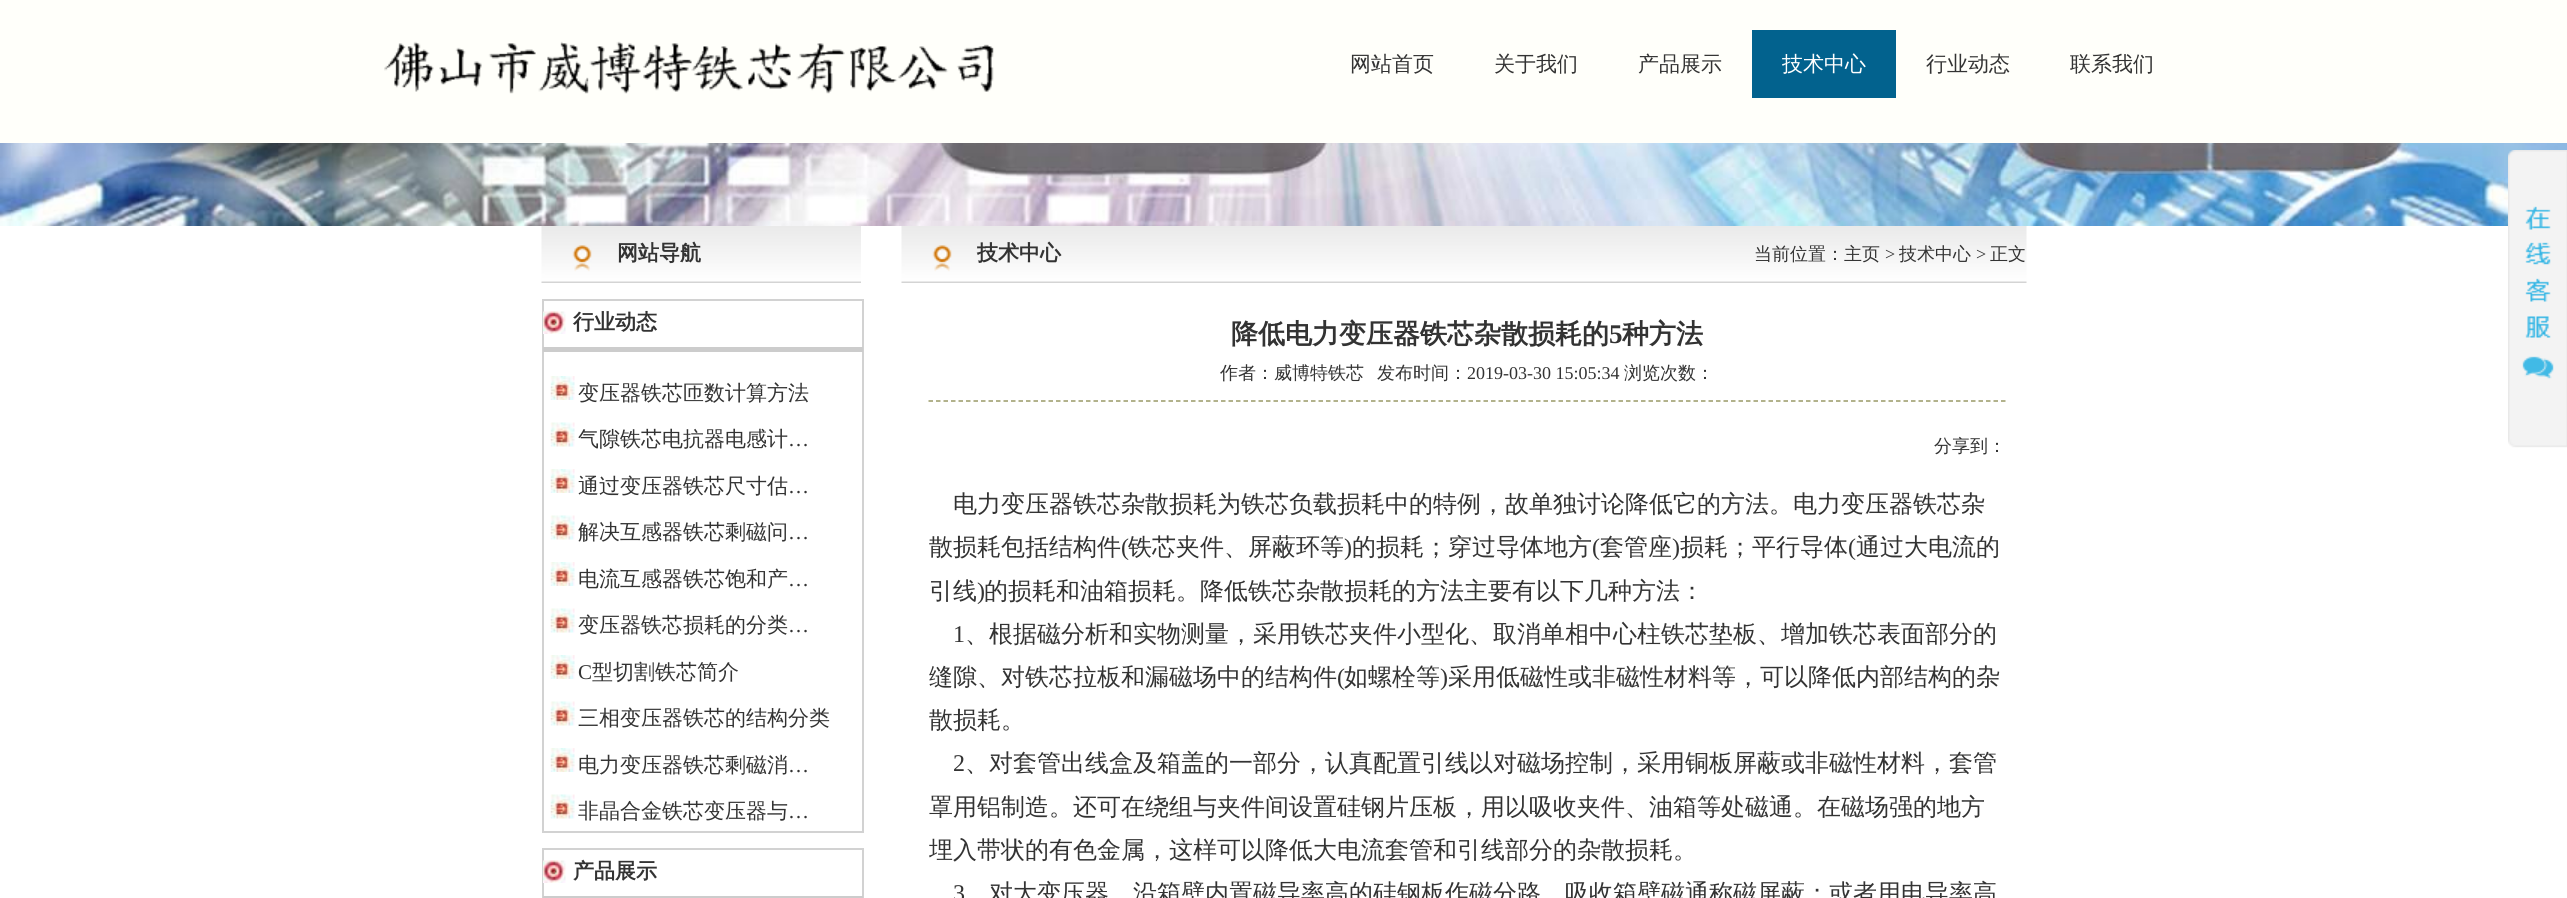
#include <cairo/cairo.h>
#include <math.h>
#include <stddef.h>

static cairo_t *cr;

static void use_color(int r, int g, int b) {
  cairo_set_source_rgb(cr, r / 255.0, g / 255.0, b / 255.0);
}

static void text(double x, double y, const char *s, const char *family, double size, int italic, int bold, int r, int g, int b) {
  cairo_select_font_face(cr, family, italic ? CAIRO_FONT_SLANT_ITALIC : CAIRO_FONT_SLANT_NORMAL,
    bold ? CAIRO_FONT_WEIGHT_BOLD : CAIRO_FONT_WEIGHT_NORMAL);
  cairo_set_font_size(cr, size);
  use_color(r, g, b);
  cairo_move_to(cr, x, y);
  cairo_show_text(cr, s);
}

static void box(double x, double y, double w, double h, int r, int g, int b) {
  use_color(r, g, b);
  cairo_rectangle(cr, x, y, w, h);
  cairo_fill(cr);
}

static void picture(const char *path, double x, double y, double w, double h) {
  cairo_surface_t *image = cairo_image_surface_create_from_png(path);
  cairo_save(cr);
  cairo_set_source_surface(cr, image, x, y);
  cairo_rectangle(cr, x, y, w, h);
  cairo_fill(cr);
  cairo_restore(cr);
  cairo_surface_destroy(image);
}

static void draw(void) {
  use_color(255, 255, 255);
  cairo_paint(cr);
  box(0, 0, 2567, 143, 255, 255, 250);
  picture("img_01.png", 384, 41, 610, 53);
  box(1752, 30, 144, 68, 2, 98, 142);
  picture("img_02.png", 0, 143, 2567, 83);
  picture("img_03.png", 541, 226, 320, 57);
  cairo_rectangle(cr, 543, 300, 320, 532);
  use_color(210, 210, 210);
  cairo_stroke(cr);
  picture("img_04.png", 543, 311, 23, 23);
  box(543, 347, 320, 5, 204, 204, 204);
  picture("img_05.png", 550, 376, 25, 24);
  picture("img_06.png", 550, 422, 25, 25);
  picture("img_05.png", 550, 469, 25, 24);
  picture("img_06.png", 550, 515, 25, 25);
  picture("img_05.png", 550, 562, 25, 24);
  picture("img_06.png", 550, 608, 25, 25);
  picture("img_05.png", 550, 655, 25, 24);
  picture("img_06.png", 550, 701, 25, 25);
  picture("img_05.png", 550, 748, 25, 24);
  picture("img_06.png", 550, 794, 25, 25);
  cairo_rectangle(cr, 543, 849, 320, 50);
  use_color(210, 210, 210);
  cairo_stroke(cr);
  picture("img_04.png", 543, 860, 23, 23);
  box(543, 896, 320, 2, 204, 204, 204);
  picture("img_07.png", 901, 226, 1126, 57);
  cairo_new_path(cr);
  cairo_move_to(cr, 928.5, 401);
  cairo_line_to(cr, 2005.5, 401);
  use_color(153, 153, 102);
  cairo_set_line_width(cr, 1.5);
  cairo_set_dash(cr, (double[]){4.5, 3}, 2, 0);
  cairo_stroke(cr);
  picture("img_08.png", 2508, 150, 59, 298);
  text(1350, 71, "网站首页", "WenQuanYi Zen Hei Medium", 21, 0, 0, 51, 51, 51);
  text(1494, 71, "关于我们", "WenQuanYi Zen Hei Medium", 21, 0, 0, 51, 51, 51);
  text(1638, 71, "产品展示", "WenQuanYi Zen Hei Medium", 21, 0, 0, 51, 51, 51);
  text(1782, 71, "技术中心", "WenQuanYi Zen Hei Medium", 21, 0, 0, 255, 255, 255);
  text(1926, 71, "行业动态", "WenQuanYi Zen Hei Medium", 21, 0, 0, 51, 51, 51);
  text(2070, 71, "联系我们", "WenQuanYi Zen Hei Medium", 21, 0, 0, 51, 51, 51);
  text(617, 260, "网站导航", "WenQuanYi Zen Hei", 21, 0, 1, 51, 51, 51);
  text(573, 329, "行业动态", "WenQuanYi Zen Hei", 21, 0, 1, 51, 51, 51);
  text(578, 400, "变压器铁芯匝数计算方法", "WenQuanYi Zen Hei Medium", 21, 0, 0, 51, 51, 51);
  text(578, 446, "气隙铁芯电抗器电感计", "WenQuanYi Zen Hei Medium", 21, 0, 0, 51, 51, 51);
  text(788, 446, "…", "Liberation Serif", 21, 0, 0, 51, 51, 51);
  text(578, 493, "通过变压器铁芯尺寸估", "WenQuanYi Zen Hei Medium", 21, 0, 0, 51, 51, 51);
  text(788, 493, "…", "Liberation Serif", 21, 0, 0, 51, 51, 51);
  text(578, 539, "解决互感器铁芯剩磁问", "WenQuanYi Zen Hei Medium", 21, 0, 0, 51, 51, 51);
  text(788, 539, "…", "Liberation Serif", 21, 0, 0, 51, 51, 51);
  text(578, 586, "电流互感器铁芯饱和产", "WenQuanYi Zen Hei Medium", 21, 0, 0, 51, 51, 51);
  text(788, 586, "…", "Liberation Serif", 21, 0, 0, 51, 51, 51);
  text(578, 632, "变压器铁芯损耗的分类", "WenQuanYi Zen Hei Medium", 21, 0, 0, 51, 51, 51);
  text(788, 632, "…", "Liberation Serif", 21, 0, 0, 51, 51, 51);
  text(578, 679, "C", "Liberation Serif", 21, 0, 0, 51, 51, 51);
  text(592, 679, "型切割铁芯简介", "WenQuanYi Zen Hei Medium", 21, 0, 0, 51, 51, 51);
  text(578, 725, "三相变压器铁芯的结构分类", "WenQuanYi Zen Hei Medium", 21, 0, 0, 51, 51, 51);
  text(578, 772, "电力变压器铁芯剩磁消", "WenQuanYi Zen Hei Medium", 21, 0, 0, 51, 51, 51);
  text(788, 772, "…", "Liberation Serif", 21, 0, 0, 51, 51, 51);
  text(578, 818, "非晶合金铁芯变压器与", "WenQuanYi Zen Hei Medium", 21, 0, 0, 51, 51, 51);
  text(788, 818, "…", "Liberation Serif", 21, 0, 0, 51, 51, 51);
  text(573, 878, "产品展示", "WenQuanYi Zen Hei", 21, 0, 1, 51, 51, 51);
  text(977, 260, "技术中心", "WenQuanYi Zen Hei", 21, 0, 1, 51, 51, 51);
  text(1754, 260, "当前位置：主页", "WenQuanYi Zen Hei Medium", 18, 0, 0, 51, 51, 51);
  text(1885, 260, ">", "Liberation Serif", 18, 0, 0, 51, 51, 51);
  text(1899, 260, "技术中心", "WenQuanYi Zen Hei Medium", 18, 0, 0, 51, 51, 51);
  text(1976, 260, ">", "Liberation Serif", 18, 0, 0, 51, 51, 51);
  text(1990, 260, "正文", "WenQuanYi Zen Hei Medium", 18, 0, 0, 51, 51, 51);
  text(1231, 343, "降低电力变压器铁芯杂散损耗的", "WenQuanYi Zen Hei", 27, 0, 1, 51, 51, 51);
  text(1609, 343, "5", "Liberation Serif", 27, 0, 1, 51, 51, 51);
  text(1622, 343, "种方法", "WenQuanYi Zen Hei", 27, 0, 1, 51, 51, 51);
  text(1220, 379, "作者：威博特铁芯", "WenQuanYi Zen Hei Medium", 18, 0, 0, 51, 51, 51);
  text(1377, 379, "发布时间：", "WenQuanYi Zen Hei Medium", 18, 0, 0, 51, 51, 51);
  text(1467, 379, "2019-03-30 15:05:34", "Liberation Serif", 18, 0, 0, 51, 51, 51);
  text(1624, 379, "浏览次数：", "WenQuanYi Zen Hei Medium", 18, 0, 0, 51, 51, 51);
  text(1934, 452, "分享到：", "WenQuanYi Zen Hei Medium", 18, 0, 0, 51, 51, 51);
  text(953, 512, "电力变压器铁芯杂散损耗为铁芯负载损耗中的特例，故单独讨论降低它的方法。电力变压器铁芯杂", "WenQuanYi Zen Hei Medium", 24, 0, 0, 51, 51, 51);
  text(929, 555, "散损耗包括结构件", "WenQuanYi Zen Hei Medium", 24, 0, 0, 51, 51, 51);
  text(1121, 555, "(", "Liberation Serif", 24, 0, 0, 51, 51, 51);
  text(1128, 555, "铁芯夹件、屏蔽环等", "WenQuanYi Zen Hei Medium", 24, 0, 0, 51, 51, 51);
  text(1344, 555, ")", "Liberation Serif", 24, 0, 0, 51, 51, 51);
  text(1352, 555, "的损耗；穿过导体地方", "WenQuanYi Zen Hei Medium", 24, 0, 0, 51, 51, 51);
  text(1592, 555, "(", "Liberation Serif", 24, 0, 0, 51, 51, 51);
  text(1600, 555, "套管座", "WenQuanYi Zen Hei Medium", 24, 0, 0, 51, 51, 51);
  text(1672, 555, ")", "Liberation Serif", 24, 0, 0, 51, 51, 51);
  text(1680, 555, "损耗；平行导体", "WenQuanYi Zen Hei Medium", 24, 0, 0, 51, 51, 51);
  text(1848, 555, "(", "Liberation Serif", 24, 0, 0, 51, 51, 51);
  text(1856, 555, "通过大电流的", "WenQuanYi Zen Hei Medium", 24, 0, 0, 51, 51, 51);
  text(929, 599, "引线", "WenQuanYi Zen Hei Medium", 24, 0, 0, 51, 51, 51);
  text(977, 599, ")", "Liberation Serif", 24, 0, 0, 51, 51, 51);
  text(984, 599, "的损耗和油箱损耗。降低铁芯杂散损耗的方法主要有以下几种方法：", "WenQuanYi Zen Hei Medium", 24, 0, 0, 51, 51, 51);
  text(953, 642, "1", "Liberation Serif", 24, 0, 0, 51, 51, 51);
  text(965, 642, "、根据磁分析和实物测量，采用铁芯夹件小型化、取消单相中心柱铁芯垫板、增加铁芯表面部分的", "WenQuanYi Zen Hei Medium", 24, 0, 0, 51, 51, 51);
  text(929, 685, "缝隙、对铁芯拉板和漏磁场中的结构件", "WenQuanYi Zen Hei Medium", 24, 0, 0, 51, 51, 51);
  text(1337, 685, "(", "Liberation Serif", 24, 0, 0, 51, 51, 51);
  text(1344, 685, "如螺栓等", "WenQuanYi Zen Hei Medium", 24, 0, 0, 51, 51, 51);
  text(1440, 685, ")", "Liberation Serif", 24, 0, 0, 51, 51, 51);
  text(1448, 685, "采用低磁性或非磁性材料等，可以降低内部结构的杂", "WenQuanYi Zen Hei Medium", 24, 0, 0, 51, 51, 51);
  text(929, 728, "散损耗。", "WenQuanYi Zen Hei Medium", 24, 0, 0, 51, 51, 51);
  text(953, 771, "2", "Liberation Serif", 24, 0, 0, 51, 51, 51);
  text(965, 771, "、对套管出线盒及箱盖的一部分，认真配置引线以对磁场控制，采用铜板屏蔽或非磁性材料，套管", "WenQuanYi Zen Hei Medium", 24, 0, 0, 51, 51, 51);
  text(929, 815, "罩用铝制造。还可在绕组与夹件间设置硅钢片压板，用以吸收夹件、油箱等处磁通。在磁场强的地方", "WenQuanYi Zen Hei Medium", 24, 0, 0, 51, 51, 51);
  cairo_save(cr);
  cairo_rectangle(cr, 929, 293, 1077, 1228);
  cairo_clip(cr);
  text(929, 858, "埋入带状的有色金属，这样可以降低大电流套管和引线部分的杂散损耗。", "WenQuanYi Zen Hei Medium", 24, 0, 0, 51, 51, 51);
  cairo_restore(cr);
  text(953, 901, "3", "Liberation Serif", 24, 0, 0, 51, 51, 51);
  text(989, 901, "对大变压器，沿箱壁内置磁导率高的硅钢板作磁分路，吸收箱壁磁通称磁屏蔽；或者用电导率高", "WenQuanYi Zen Hei Medium", 24, 0, 0, 51, 51, 51);
}

int main(void) {
  cairo_surface_t *surface = cairo_image_surface_create(CAIRO_FORMAT_RGB24, 2567, 898);
  cr = cairo_create(surface);
  cairo_font_options_t *options = cairo_font_options_create();
  cairo_font_options_set_hint_metrics(options, CAIRO_HINT_METRICS_OFF);
  cairo_font_options_set_hint_style(options, CAIRO_HINT_STYLE_NONE);
  cairo_set_font_options(cr, options);
  cairo_set_miter_limit(cr, 4);
  draw();
  cairo_surface_write_to_png(surface, "out.png");
  cairo_font_options_destroy(options);
  cairo_destroy(cr);
  cairo_surface_destroy(surface);
  return 0;
}
